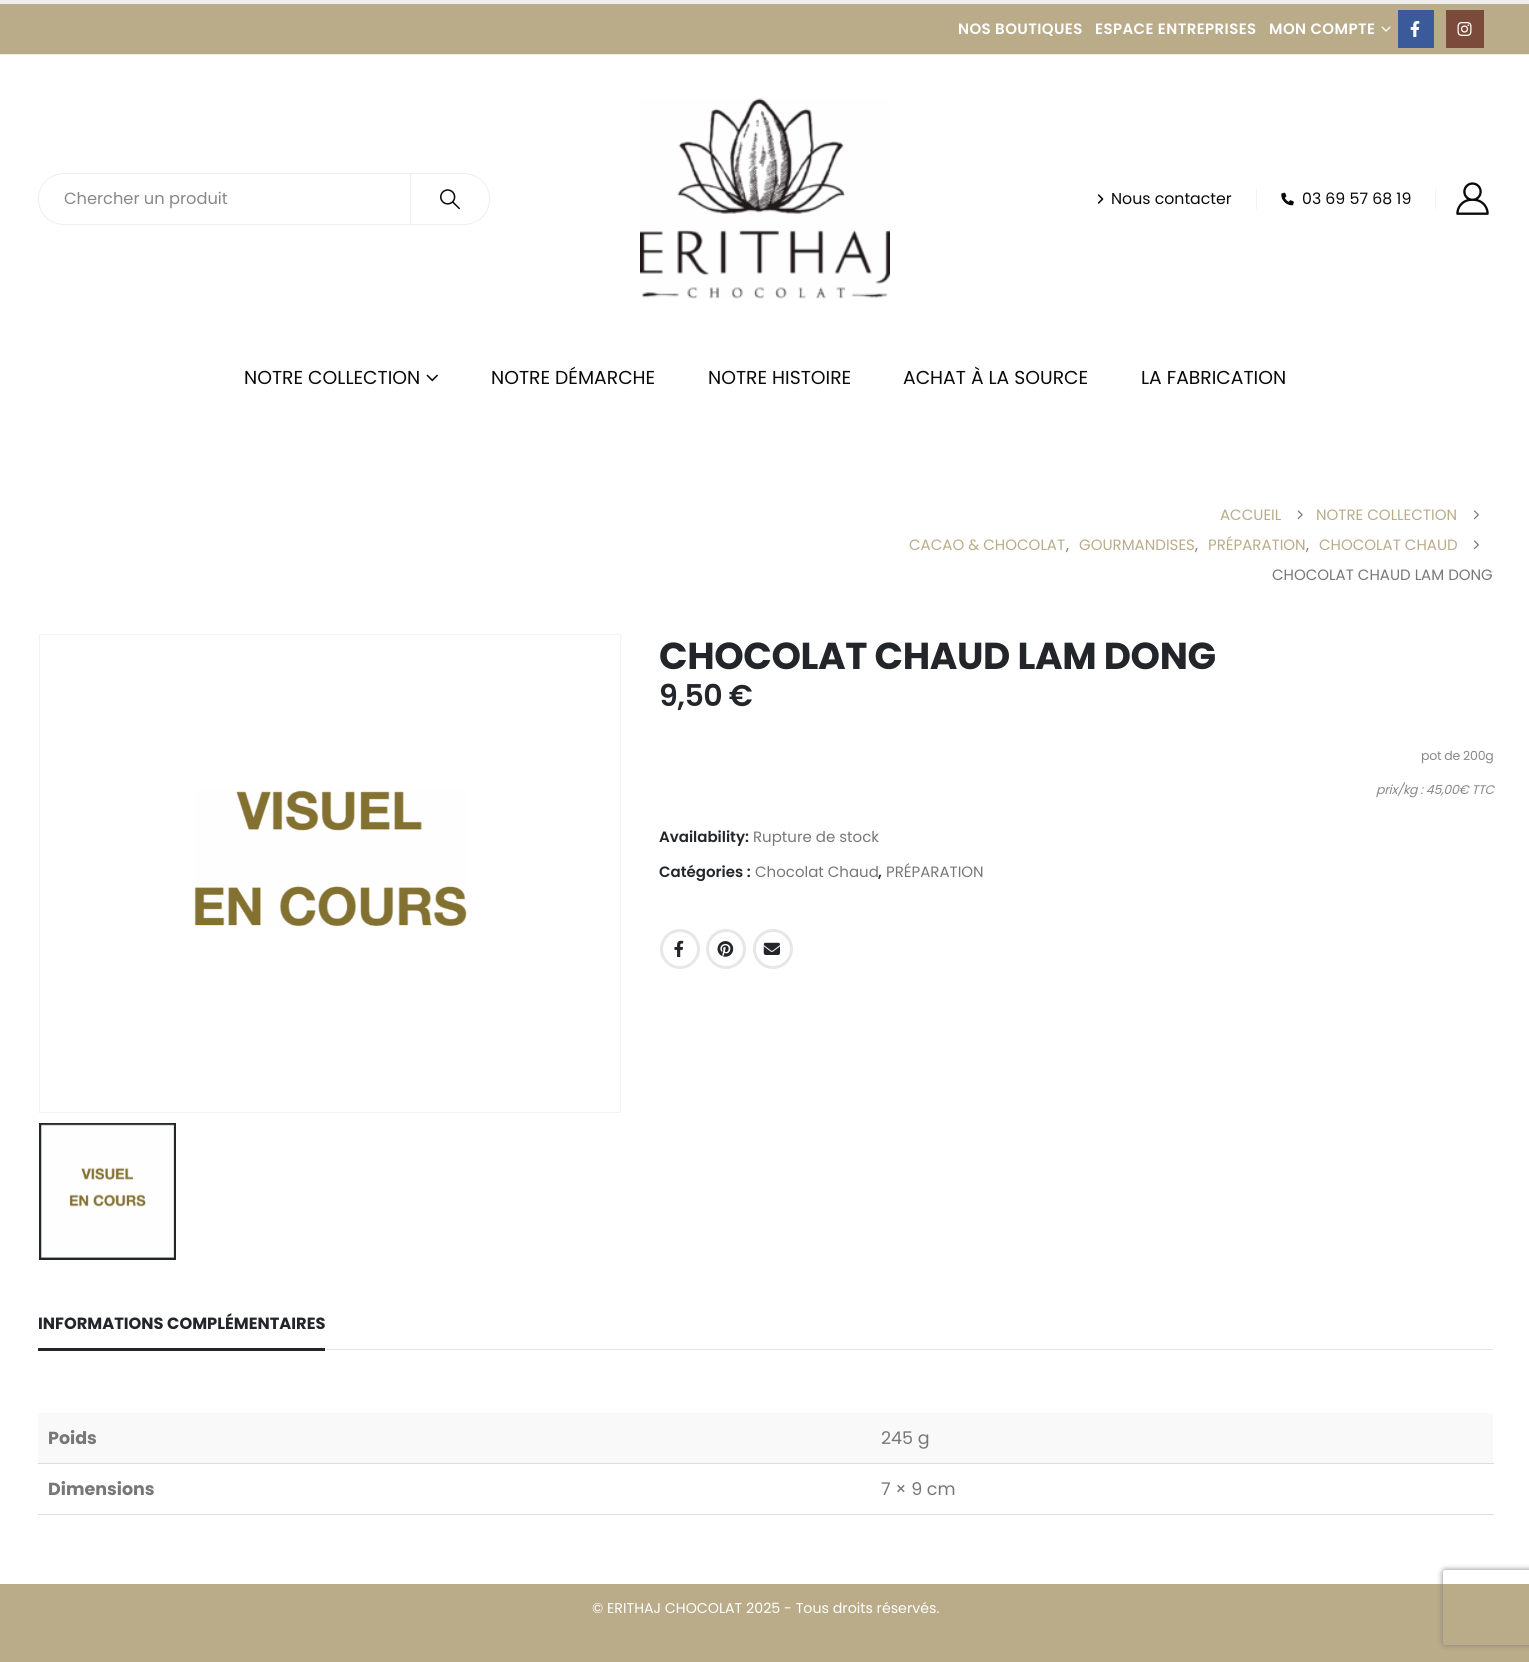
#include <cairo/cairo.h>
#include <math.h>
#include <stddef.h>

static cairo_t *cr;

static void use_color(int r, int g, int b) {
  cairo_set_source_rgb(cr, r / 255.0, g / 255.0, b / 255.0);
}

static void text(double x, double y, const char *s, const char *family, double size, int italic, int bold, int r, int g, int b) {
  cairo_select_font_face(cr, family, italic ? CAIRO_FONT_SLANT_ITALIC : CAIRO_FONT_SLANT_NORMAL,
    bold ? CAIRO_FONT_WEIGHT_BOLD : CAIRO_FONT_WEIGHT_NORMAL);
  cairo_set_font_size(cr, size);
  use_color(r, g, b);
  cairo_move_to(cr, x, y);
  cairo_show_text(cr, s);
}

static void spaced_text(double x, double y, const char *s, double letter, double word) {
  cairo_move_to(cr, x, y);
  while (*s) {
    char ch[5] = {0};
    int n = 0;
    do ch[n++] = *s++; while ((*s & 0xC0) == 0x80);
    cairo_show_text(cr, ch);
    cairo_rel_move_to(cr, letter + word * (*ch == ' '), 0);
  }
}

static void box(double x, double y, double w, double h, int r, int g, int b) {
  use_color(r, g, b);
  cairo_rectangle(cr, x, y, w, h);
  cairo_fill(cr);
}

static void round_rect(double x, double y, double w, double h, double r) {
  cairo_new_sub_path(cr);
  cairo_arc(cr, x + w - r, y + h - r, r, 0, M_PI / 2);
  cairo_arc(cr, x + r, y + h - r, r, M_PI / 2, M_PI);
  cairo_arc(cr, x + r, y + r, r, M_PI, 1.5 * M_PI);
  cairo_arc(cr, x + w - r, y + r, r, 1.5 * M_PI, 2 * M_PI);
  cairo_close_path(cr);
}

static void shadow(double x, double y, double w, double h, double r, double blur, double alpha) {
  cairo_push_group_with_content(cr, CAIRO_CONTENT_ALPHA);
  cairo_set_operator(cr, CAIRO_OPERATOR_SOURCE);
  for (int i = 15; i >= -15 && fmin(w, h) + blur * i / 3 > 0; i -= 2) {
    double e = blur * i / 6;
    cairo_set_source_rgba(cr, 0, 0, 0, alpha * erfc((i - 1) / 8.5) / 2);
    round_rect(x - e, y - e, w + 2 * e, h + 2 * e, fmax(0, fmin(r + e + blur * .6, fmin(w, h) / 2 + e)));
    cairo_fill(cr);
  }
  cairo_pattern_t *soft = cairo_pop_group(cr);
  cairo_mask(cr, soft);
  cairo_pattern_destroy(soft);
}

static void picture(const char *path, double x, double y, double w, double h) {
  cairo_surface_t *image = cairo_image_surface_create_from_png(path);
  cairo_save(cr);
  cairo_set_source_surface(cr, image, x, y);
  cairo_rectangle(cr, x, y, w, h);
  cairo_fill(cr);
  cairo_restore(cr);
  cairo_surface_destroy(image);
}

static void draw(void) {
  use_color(186, 171, 137);
  cairo_paint(cr);
  box(0, 55, 1529, 1529, 255, 255, 255);
  box(0, 0, 1529, 4, 237, 237, 237);
  box(0, 54, 1529, 1, 237, 237, 237);
  picture("img_01.png", 1381, 26, 10, 6);
  box(1398, 10, 36, 38, 59, 90, 154);
  picture("img_02.png", 1410, 21, 10, 16);
  box(1446, 10, 38, 38, 124, 74, 58);
  picture("img_03.png", 1457, 22, 15, 14);
  round_rect(38.5, 173.5, 451, 51, 25.5);
  use_color(238, 238, 238);
  cairo_set_line_width(cr, 1);
  cairo_stroke(cr);
  box(410, 174, 1, 50, 238, 238, 238);
  picture("img_04.png", 440, 189, 20, 21);
  picture("img_05.png", 640, 98, 250, 201);
  picture("img_06.png", 1097, 194, 7, 10);
  box(1256, 189, 1, 20, 242, 242, 242);
  picture("img_07.png", 1281, 192, 13, 14);
  box(1435, 189, 1, 20, 242, 242, 242);
  picture("img_08.png", 1456, 182, 33, 33);
  picture("img_09.png", 426, 374, 12, 8);
  picture("img_10.png", 1297, 510, 6, 10);
  picture("img_11.png", 1473, 510, 6, 10);
  picture("img_11.png", 1473, 540, 6, 10);
  cairo_rectangle(cr, 39.5, 634.5, 581, 478);
  use_color(244, 244, 244);
  cairo_stroke(cr);
  picture("img_12.png", 194, 790, 273, 137);
  cairo_rectangle(cr, 40.5, 1124.5, 134, 134);
  use_color(34, 37, 41);
  cairo_set_line_width(cr, 3);
  cairo_stroke(cr);
  picture("img_13.png", 41, 1124, 133, 134);
  cairo_arc(cr, 680, 949, 18.5, 0, 2 * M_PI);
  use_color(231, 231, 231);
  cairo_stroke(cr);
  picture("img_14.png", 674, 940, 10, 17);
  cairo_arc(cr, 726, 949, 18.5, 0, 2 * M_PI);
  cairo_stroke(cr);
  picture("img_15.png", 717, 941, 17, 16);
  cairo_arc(cr, 773, 949, 18.5, 0, 2 * M_PI);
  cairo_stroke(cr);
  picture("img_16.png", 763, 942, 17, 13);
  box(38, 1348, 287, 3, 34, 37, 41);
  box(325, 1349, 1168, 1, 231, 231, 231);
  box(38, 1413, 1455, 50, 249, 249, 249);
  box(38, 1463, 1456, 1, 221, 221, 221);
  box(38, 1514, 1456, 1, 221, 221, 221);
  cairo_save(cr);
  cairo_set_fill_rule(cr, CAIRO_FILL_RULE_EVEN_ODD);
  cairo_new_path(cr);
  cairo_move_to(cr, 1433, 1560);
  cairo_line_to(cr, 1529, 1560);
  cairo_line_to(cr, 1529, 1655);
  cairo_line_to(cr, 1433, 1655);
  cairo_close_path(cr);
  cairo_move_to(cr, 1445.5, 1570);
  cairo_line_to(cr, 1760.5, 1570);
  cairo_curve_to(cr, 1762, 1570, 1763, 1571, 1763, 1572.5);
  cairo_line_to(cr, 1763, 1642.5);
  cairo_curve_to(cr, 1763, 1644, 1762, 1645, 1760.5, 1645);
  cairo_line_to(cr, 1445.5, 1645);
  cairo_curve_to(cr, 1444, 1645, 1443, 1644, 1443, 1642.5);
  cairo_line_to(cr, 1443, 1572.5);
  cairo_curve_to(cr, 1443, 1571, 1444, 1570, 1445.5, 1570);
  cairo_close_path(cr);
  cairo_clip(cr);
  use_color(128, 128, 128);
  shadow(1443, 1570, 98, 75, 2.5, 3, 1);
  cairo_restore(cr);
  cairo_select_font_face(cr, "Poppins SemiBold", CAIRO_FONT_SLANT_NORMAL, CAIRO_FONT_WEIGHT_NORMAL);
  cairo_set_font_size(cr, 15);
  use_color(255, 255, 255);
  spaced_text(958, 34, "NOS BOUTIQUES", 0.4, 0);
  spaced_text(1095, 34, "ESPACE ENTREPRISES", 0.4, 0);
  spaced_text(1269, 34, "MON COMPTE", 0.4, 0);
  text(64, 204, "Chercher un produit", "Poppins", 16.25, 0, 0, 136, 136, 136);
  text(1111, 204, "Nous contacter", "Poppins", 15.75, 0, 0, 10, 10, 10);
  text(1302, 204, "03 69 57 68 19", "Poppins", 15.75, 0, 0, 10, 10, 10);
  text(244, 384, "NOTRE COLLECTION", "Poppins", 18.75, 0, 0, 10, 10, 10);
  text(491, 384, "NOTRE DÉMARCHE", "Poppins", 18.75, 0, 0, 10, 10, 10);
  text(708, 384, "NOTRE HISTOIRE", "Poppins", 18.75, 0, 0, 10, 10, 10);
  text(903, 384, "ACHAT À LA SOURCE", "Poppins", 18.75, 0, 0, 10, 10, 10);
  text(1141, 384, "LA FABRICATION", "Poppins", 18.75, 0, 0, 10, 10, 10);
  text(1220, 520, "ACCUEIL", "Poppins", 15, 0, 0, 186, 171, 137);
  text(1316, 520, "NOTRE COLLECTION", "Poppins", 15, 0, 0, 186, 171, 137);
  text(909, 550, "CACAO & CHOCOLAT", "Poppins", 15, 0, 0, 186, 171, 137);
  text(1079, 550, "GOURMANDISES", "Poppins", 15, 0, 0, 186, 171, 137);
  text(1208, 550, "PRÉPARATION", "Poppins", 15, 0, 0, 186, 171, 137);
  text(1319, 550, "CHOCOLAT CHAUD", "Poppins", 15, 0, 0, 186, 171, 137);
  text(1066, 550, ",", "Poppins", 15, 0, 0, 119, 119, 119);
  text(1195, 550, ",", "Poppins", 15, 0, 0, 119, 119, 119);
  text(1306, 550, ",", "Poppins", 15, 0, 0, 119, 119, 119);
  text(1272, 580, "CHOCOLAT CHAUD LAM DONG", "Poppins", 15, 0, 0, 119, 119, 119);
  cairo_select_font_face(cr, "Poppins", CAIRO_FONT_SLANT_NORMAL, CAIRO_FONT_WEIGHT_BOLD);
  cairo_set_font_size(cr, 37.5);
  use_color(34, 37, 41);
  spaced_text(659, 669, "CHOCOLAT CHAUD LAM DONG", -0.4, 0);
  cairo_select_font_face(cr, "Poppins SemiBold", CAIRO_FONT_SLANT_NORMAL, CAIRO_FONT_WEIGHT_NORMAL);
  cairo_set_font_size(cr, 30);
  spaced_text(659, 706, "9,50 €", -0.5, 0);
  cairo_select_font_face(cr, "Poppins", CAIRO_FONT_SLANT_NORMAL, CAIRO_FONT_WEIGHT_NORMAL);
  cairo_set_font_size(cr, 12.5);
  use_color(136, 136, 136);
  spaced_text(1421, 760, "pot de 200g", -0.25, 0);
  cairo_select_font_face(cr, "Poppins", CAIRO_FONT_SLANT_ITALIC, CAIRO_FONT_WEIGHT_NORMAL);
  spaced_text(1376, 794, "prix/kg : 45,00€ TTC", -0.25, 0);
  text(659, 842, "Availability:", "Poppins SemiBold", 15, 0, 0, 34, 37, 41);
  text(753, 842, "Rupture de stock", "Poppins", 15, 0, 0, 119, 119, 119);
  text(659, 877, "Catégories :", "Poppins SemiBold", 15, 0, 0, 34, 37, 41);
  text(755, 877, "Chocolat Chaud", "Poppins", 15, 0, 0, 119, 119, 119);
  text(878, 877, ",", "Poppins SemiBold", 15, 0, 0, 34, 37, 41);
  text(886, 877, "PRÉPARATION", "Poppins", 15, 0, 0, 119, 119, 119);
  text(38, 1329, "INFORMATIONS COMPLÉMENTAIRES", "Poppins", 16.25, 0, 1, 34, 37, 41);
  text(48, 1444, "Poids", "Poppins", 17.5, 0, 1, 119, 119, 119);
  text(881, 1444, "245 g", "Poppins", 17.5, 0, 0, 119, 119, 119);
  text(48, 1495, "Dimensions", "Poppins", 17.5, 0, 1, 119, 119, 119);
  text(881, 1495, "7 × 9 cm", "Poppins", 17.5, 0, 0, 119, 119, 119);
  text(592, 1613, "© ERITHAJ CHOCOLAT 2025 - Tous droits réservés.", "Poppins", 14.2, 0, 0, 255, 255, 255);
}

int main(void) {
  cairo_surface_t *surface = cairo_image_surface_create(CAIRO_FORMAT_RGB24, 1529, 1662);
  cr = cairo_create(surface);
  cairo_font_options_t *options = cairo_font_options_create();
  cairo_font_options_set_hint_metrics(options, CAIRO_HINT_METRICS_OFF);
  cairo_font_options_set_hint_style(options, CAIRO_HINT_STYLE_NONE);
  cairo_set_font_options(cr, options);
  cairo_set_miter_limit(cr, 4);
  draw();
  cairo_surface_write_to_png(surface, "out.png");
  cairo_font_options_destroy(options);
  cairo_destroy(cr);
  cairo_surface_destroy(surface);
  return 0;
}
